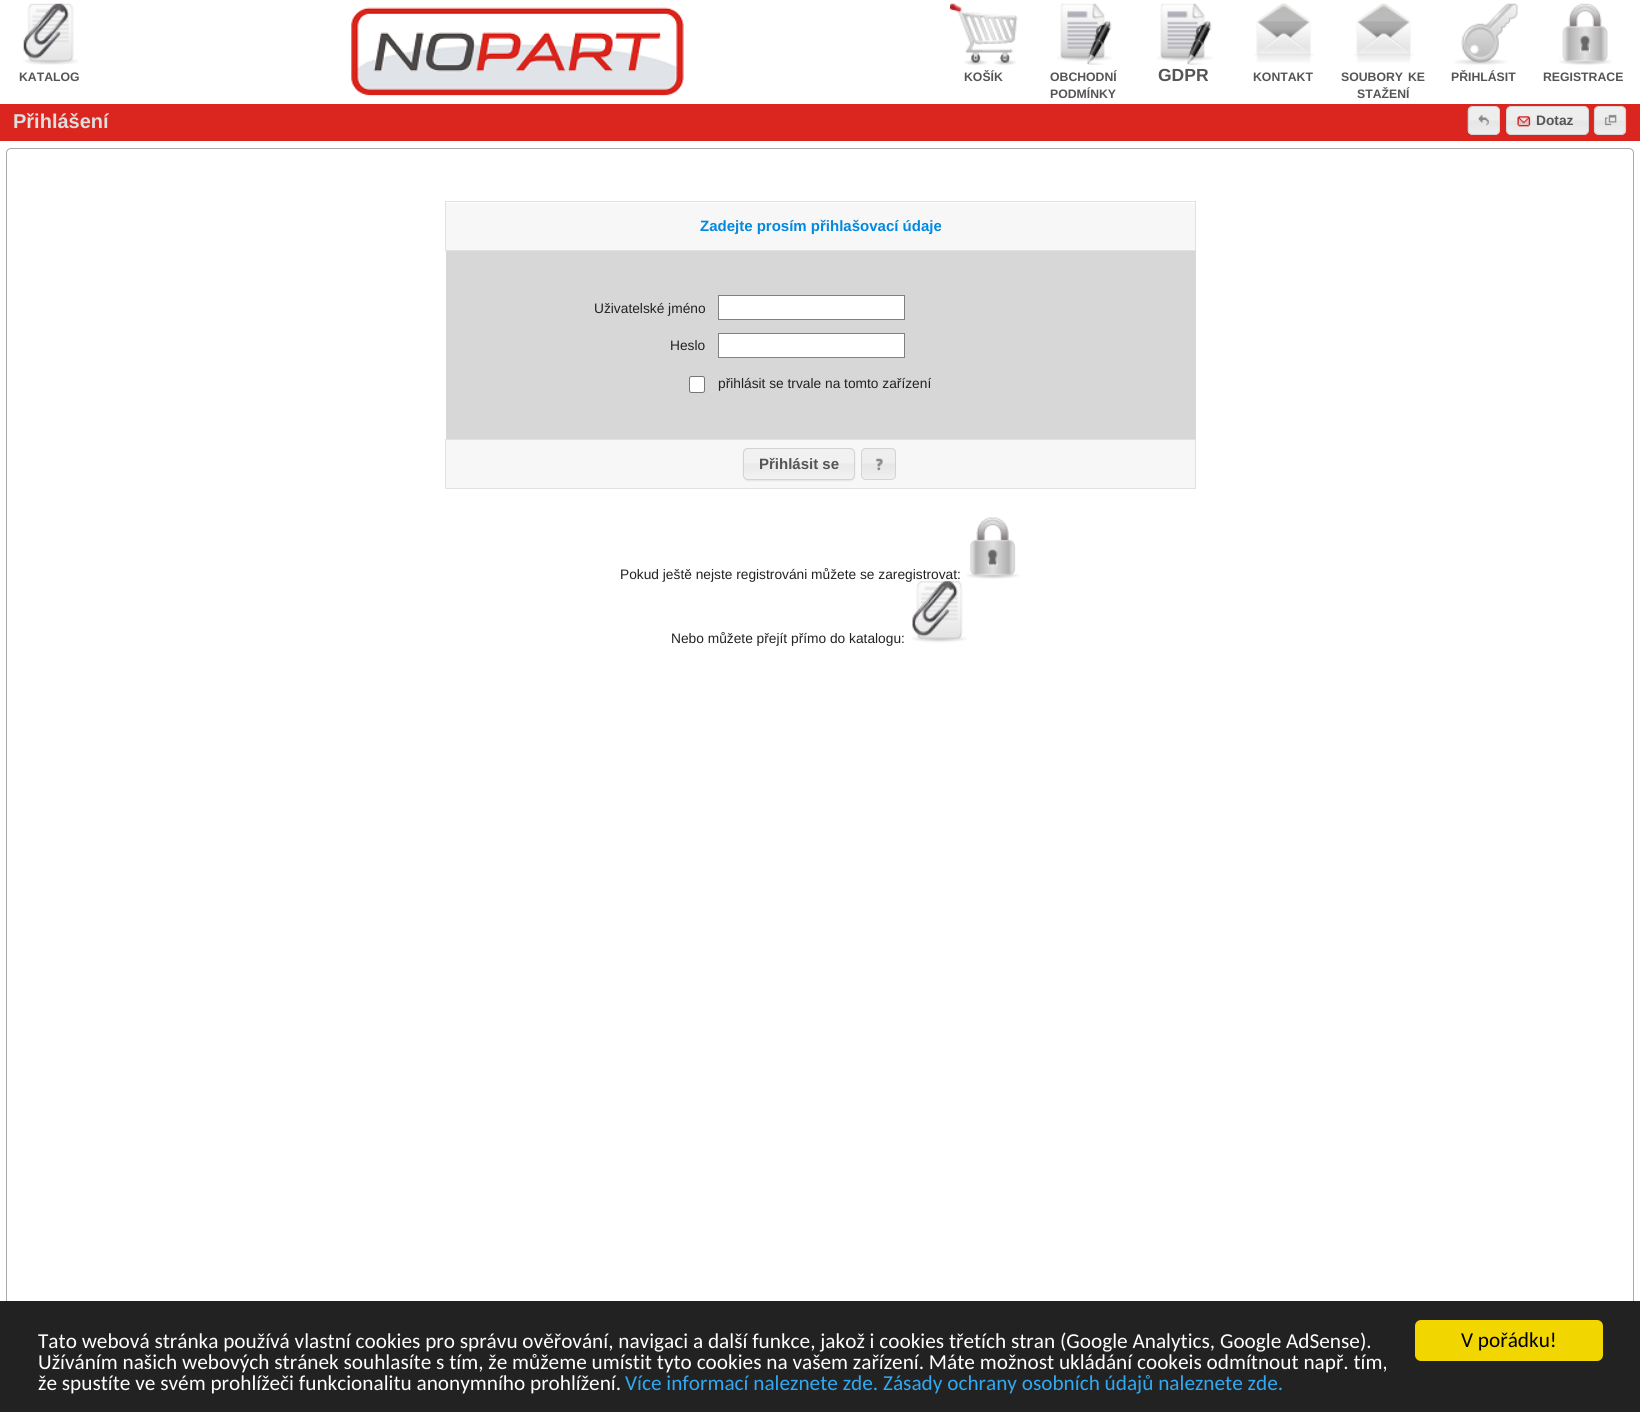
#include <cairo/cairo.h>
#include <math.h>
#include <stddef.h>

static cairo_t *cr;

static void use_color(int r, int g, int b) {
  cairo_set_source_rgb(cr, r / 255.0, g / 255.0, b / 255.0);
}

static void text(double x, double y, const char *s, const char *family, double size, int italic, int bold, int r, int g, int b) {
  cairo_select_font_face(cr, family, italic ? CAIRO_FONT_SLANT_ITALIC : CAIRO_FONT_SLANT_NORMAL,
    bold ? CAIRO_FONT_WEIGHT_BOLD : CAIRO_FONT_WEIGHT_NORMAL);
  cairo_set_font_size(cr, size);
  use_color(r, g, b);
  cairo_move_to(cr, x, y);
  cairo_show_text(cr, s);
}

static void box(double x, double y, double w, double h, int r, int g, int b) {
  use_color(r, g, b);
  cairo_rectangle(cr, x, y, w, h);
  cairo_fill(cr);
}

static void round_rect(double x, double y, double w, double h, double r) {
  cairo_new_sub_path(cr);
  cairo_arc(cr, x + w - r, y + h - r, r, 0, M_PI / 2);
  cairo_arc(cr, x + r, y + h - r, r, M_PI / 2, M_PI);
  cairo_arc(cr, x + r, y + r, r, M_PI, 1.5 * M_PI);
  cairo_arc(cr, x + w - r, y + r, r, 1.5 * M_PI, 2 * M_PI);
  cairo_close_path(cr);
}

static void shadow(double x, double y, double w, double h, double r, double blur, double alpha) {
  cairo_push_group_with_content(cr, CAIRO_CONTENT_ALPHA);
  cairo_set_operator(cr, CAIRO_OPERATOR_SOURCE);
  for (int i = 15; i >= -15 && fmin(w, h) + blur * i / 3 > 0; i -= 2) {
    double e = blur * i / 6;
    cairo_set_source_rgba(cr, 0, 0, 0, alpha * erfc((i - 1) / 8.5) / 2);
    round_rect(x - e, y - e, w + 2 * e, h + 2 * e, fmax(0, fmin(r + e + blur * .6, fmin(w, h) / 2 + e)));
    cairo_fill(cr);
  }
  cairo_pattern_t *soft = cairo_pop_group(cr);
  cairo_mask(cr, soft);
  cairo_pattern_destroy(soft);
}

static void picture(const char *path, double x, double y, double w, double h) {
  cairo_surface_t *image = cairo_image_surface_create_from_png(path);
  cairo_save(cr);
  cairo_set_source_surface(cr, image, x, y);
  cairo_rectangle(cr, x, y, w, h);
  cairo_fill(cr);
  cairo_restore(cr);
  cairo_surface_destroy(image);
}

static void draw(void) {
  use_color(255, 255, 255);
  cairo_paint(cr);
  picture("img_01.png", 23, 3, 55, 62);
  picture("img_02.png", 351, 7, 333, 89);
  picture("img_03.png", 950, 3, 68, 62);
  picture("img_04.png", 1057, 3, 56, 62);
  picture("img_05.png", 1157, 3, 56, 62);
  picture("img_06.png", 1254, 3, 60, 60);
  picture("img_07.png", 1354, 3, 60, 60);
  picture("img_08.png", 1454, 3, 64, 62);
  picture("img_09.png", 1559, 3, 53, 62);
  box(0, 104, 1640, 37, 218, 38, 30);
  picture("img_10.png", 1467, 106, 33, 29);
  round_rect(1468.5, 106.5, 31, 28, 4.5);
  use_color(211, 211, 211);
  cairo_set_line_width(cr, 1);
  cairo_stroke(cr);
  picture("img_11.png", 1478, 114, 11, 12);
  picture("img_12.png", 1506, 106, 83, 29);
  round_rect(1506.5, 106.5, 82, 28, 4.5);
  cairo_stroke(cr);
  picture("img_13.png", 1517, 116, 14, 11);
  picture("img_14.png", 1593, 106, 34, 29);
  round_rect(1594.5, 106.5, 31, 28, 4.5);
  cairo_stroke(cr);
  picture("img_15.png", 1604, 114, 13, 12);
  round_rect(6.5, 148.5, 1627, 1224, 4.5);
  use_color(170, 170, 170);
  cairo_stroke(cr);
  box(446, 203, 749, 47, 247, 247, 247);
  box(445, 201, 751, 1, 225, 225, 225);
  box(1195, 201, 1, 50, 225, 225, 225);
  box(445, 250, 751, 1, 225, 225, 225);
  box(445, 201, 1, 50, 225, 225, 225);
  box(446, 251, 750, 38, 215, 215, 215);
  box(446, 289, 750, 37, 215, 215, 215);
  use_color(255, 255, 255);
  cairo_rectangle(cr, 718.5, 295.5, 186, 24);
  cairo_fill_preserve(cr);
  use_color(128, 128, 128);
  cairo_stroke(cr);
  box(446, 326, 750, 38, 215, 215, 215);
  use_color(255, 255, 255);
  cairo_rectangle(cr, 718.5, 333.5, 186, 24);
  cairo_fill_preserve(cr);
  use_color(128, 128, 128);
  cairo_stroke(cr);
  box(446, 364, 750, 75, 215, 215, 215);
  use_color(255, 255, 255);
  round_rect(689.5, 376.5, 15, 16, 2);
  cairo_fill_preserve(cr);
  use_color(118, 118, 118);
  cairo_stroke(cr);
  box(446, 440, 749, 48, 247, 247, 247);
  box(445, 439, 751, 1, 225, 225, 225);
  box(1195, 439, 1, 50, 225, 225, 225);
  box(445, 488, 751, 1, 225, 225, 225);
  box(445, 439, 1, 50, 225, 225, 225);
  use_color(0, 0, 0);
  shadow(743, 449, 112, 32, 5, 0.5, 0.07);
  picture("img_16.png", 743, 448, 112, 32);
  cairo_set_source_rgba(cr, 1, 1, 1, 0.15);
  cairo_new_path(cr);
  cairo_move_to(cr, 748, 449);
  cairo_curve_to(cr, 746, 449, 744, 451, 744, 453);
  cairo_line_to(cr, 744, 475);
  cairo_curve_to(cr, 744, 477, 746, 479, 748, 479);
  cairo_line_to(cr, 850, 479);
  cairo_curve_to(cr, 852, 479, 854, 477, 854, 475);
  cairo_line_to(cr, 854, 453);
  cairo_curve_to(cr, 854, 451, 852, 449, 850, 449);
  cairo_close_path(cr);
  cairo_fill(cr);
  round_rect(743.5, 448.5, 111, 31, 4.5);
  use_color(211, 211, 211);
  cairo_stroke(cr);
  picture("img_17.png", 861, 448, 35, 32);
  round_rect(861.5, 448.5, 34, 31, 4.5);
  cairo_stroke(cr);
  picture("img_18.png", 876, 458, 7, 13);
  picture("img_19.png", 966, 517, 54, 62);
  box(0, 1301, 1640, 111, 34, 34, 34);
  use_color(241, 214, 0);
  round_rect(1415, 1320, 188, 41, 6);
  cairo_fill(cr);
  text(19, 81, "KATALOG", "Liberation Sans", 12.25, 0, 1, 85, 85, 85);
  text(964, 81, "KOŠÍK", "Liberation Sans", 12.25, 0, 1, 85, 85, 85);
  text(1050, 81, "OBCHODNÍ", "Liberation Sans", 12.25, 0, 1, 85, 85, 85);
  text(1050, 98, "PODMÍNKY", "Liberation Sans", 12.25, 0, 1, 85, 85, 85);
  text(1158, 81, "GDPR", "Liberation Sans", 17.5, 0, 1, 85, 85, 85);
  text(1253, 81, "KONTAKT", "Liberation Sans", 12.25, 0, 1, 85, 85, 85);
  text(1341, 81, "SOUBORY", "Liberation Sans", 12.25, 0, 1, 85, 85, 85);
  text(1408, 81, "KE", "Liberation Sans", 12.25, 0, 1, 85, 85, 85);
  text(1357, 98, "STAŽENÍ", "Liberation Sans", 12.25, 0, 1, 85, 85, 85);
  text(1451, 81, "PŘIHLÁSIT", "Liberation Sans", 12.25, 0, 1, 85, 85, 85);
  text(1543, 81, "REGISTRACE", "Liberation Sans", 12.25, 0, 1, 85, 85, 85);
  text(13, 128, "Přihlášení", "Liberation Sans", 20, 0, 1, 222, 222, 222);
  text(1536, 125, "Dotaz", "Liberation Sans", 13.75, 0, 1, 85, 85, 85);
  text(700, 231, "Zadejte prosím přihlašovací údaje", "Liberation Sans", 15, 0, 1, 0, 137, 225);
  text(594, 313, "Uživatelské jméno", "Liberation Sans", 13.75, 0, 0, 34, 34, 34);
  text(670, 350, "Heslo", "Liberation Sans", 13.75, 0, 0, 34, 34, 34);
  text(718, 388, "přihlásit se trvale na tomto zařízení", "Liberation Sans", 13.75, 0, 0, 34, 34, 34);
  text(759, 469, "Přihlásit se", "Liberation Sans", 15, 0, 1, 85, 85, 85);
  text(620, 579, "Pokud ještě nejste registrováni můžete se zaregistrovat:", "Liberation Sans", 13.75, 0, 0, 34, 34, 34);
  text(671, 643, "Nebo můžete přejít přímo do katalogu:", "Liberation Sans", 13.75, 0, 0, 34, 34, 34);
  picture("img_20.png", 912, 581, 55, 62);
  text(38, 1348, "Tato webová stránka používá vlastní cookies pro správu ověřování, navigaci a další funkce, jakož i cookies třetích stran (Google Analytics, Google AdSense).", "Carlito", 21.25, 0, 0, 255, 255, 255);
  text(38, 1369, "Užíváním našich webových stránek souhlasíte s tím, že můžeme umístit tyto cookies na vašem zařízení. Máte možnost ukládání cookeis odmítnout např. tím,", "Carlito", 21.25, 0, 0, 255, 255, 255);
  text(38, 1390, "že spustíte ve svém prohlížeči funkcionalitu anonymního prohlížení.", "Carlito", 21.25, 0, 0, 255, 255, 255);
  text(625, 1390, "Více informací naleznete zde. Zásady ochrany osobních údajů naleznete zde.", "Carlito", 21.25, 0, 0, 49, 168, 240);
  text(1461, 1347, "V pořádku!", "Carlito", 21.25, 0, 0, 0, 0, 0);
}

int main(void) {
  cairo_surface_t *surface = cairo_image_surface_create(CAIRO_FORMAT_RGB24, 1640, 1412);
  cr = cairo_create(surface);
  cairo_font_options_t *options = cairo_font_options_create();
  cairo_font_options_set_hint_metrics(options, CAIRO_HINT_METRICS_OFF);
  cairo_font_options_set_hint_style(options, CAIRO_HINT_STYLE_NONE);
  cairo_set_font_options(cr, options);
  cairo_set_miter_limit(cr, 4);
  draw();
  cairo_surface_write_to_png(surface, "out.png");
  cairo_font_options_destroy(options);
  cairo_destroy(cr);
  cairo_surface_destroy(surface);
  return 0;
}
